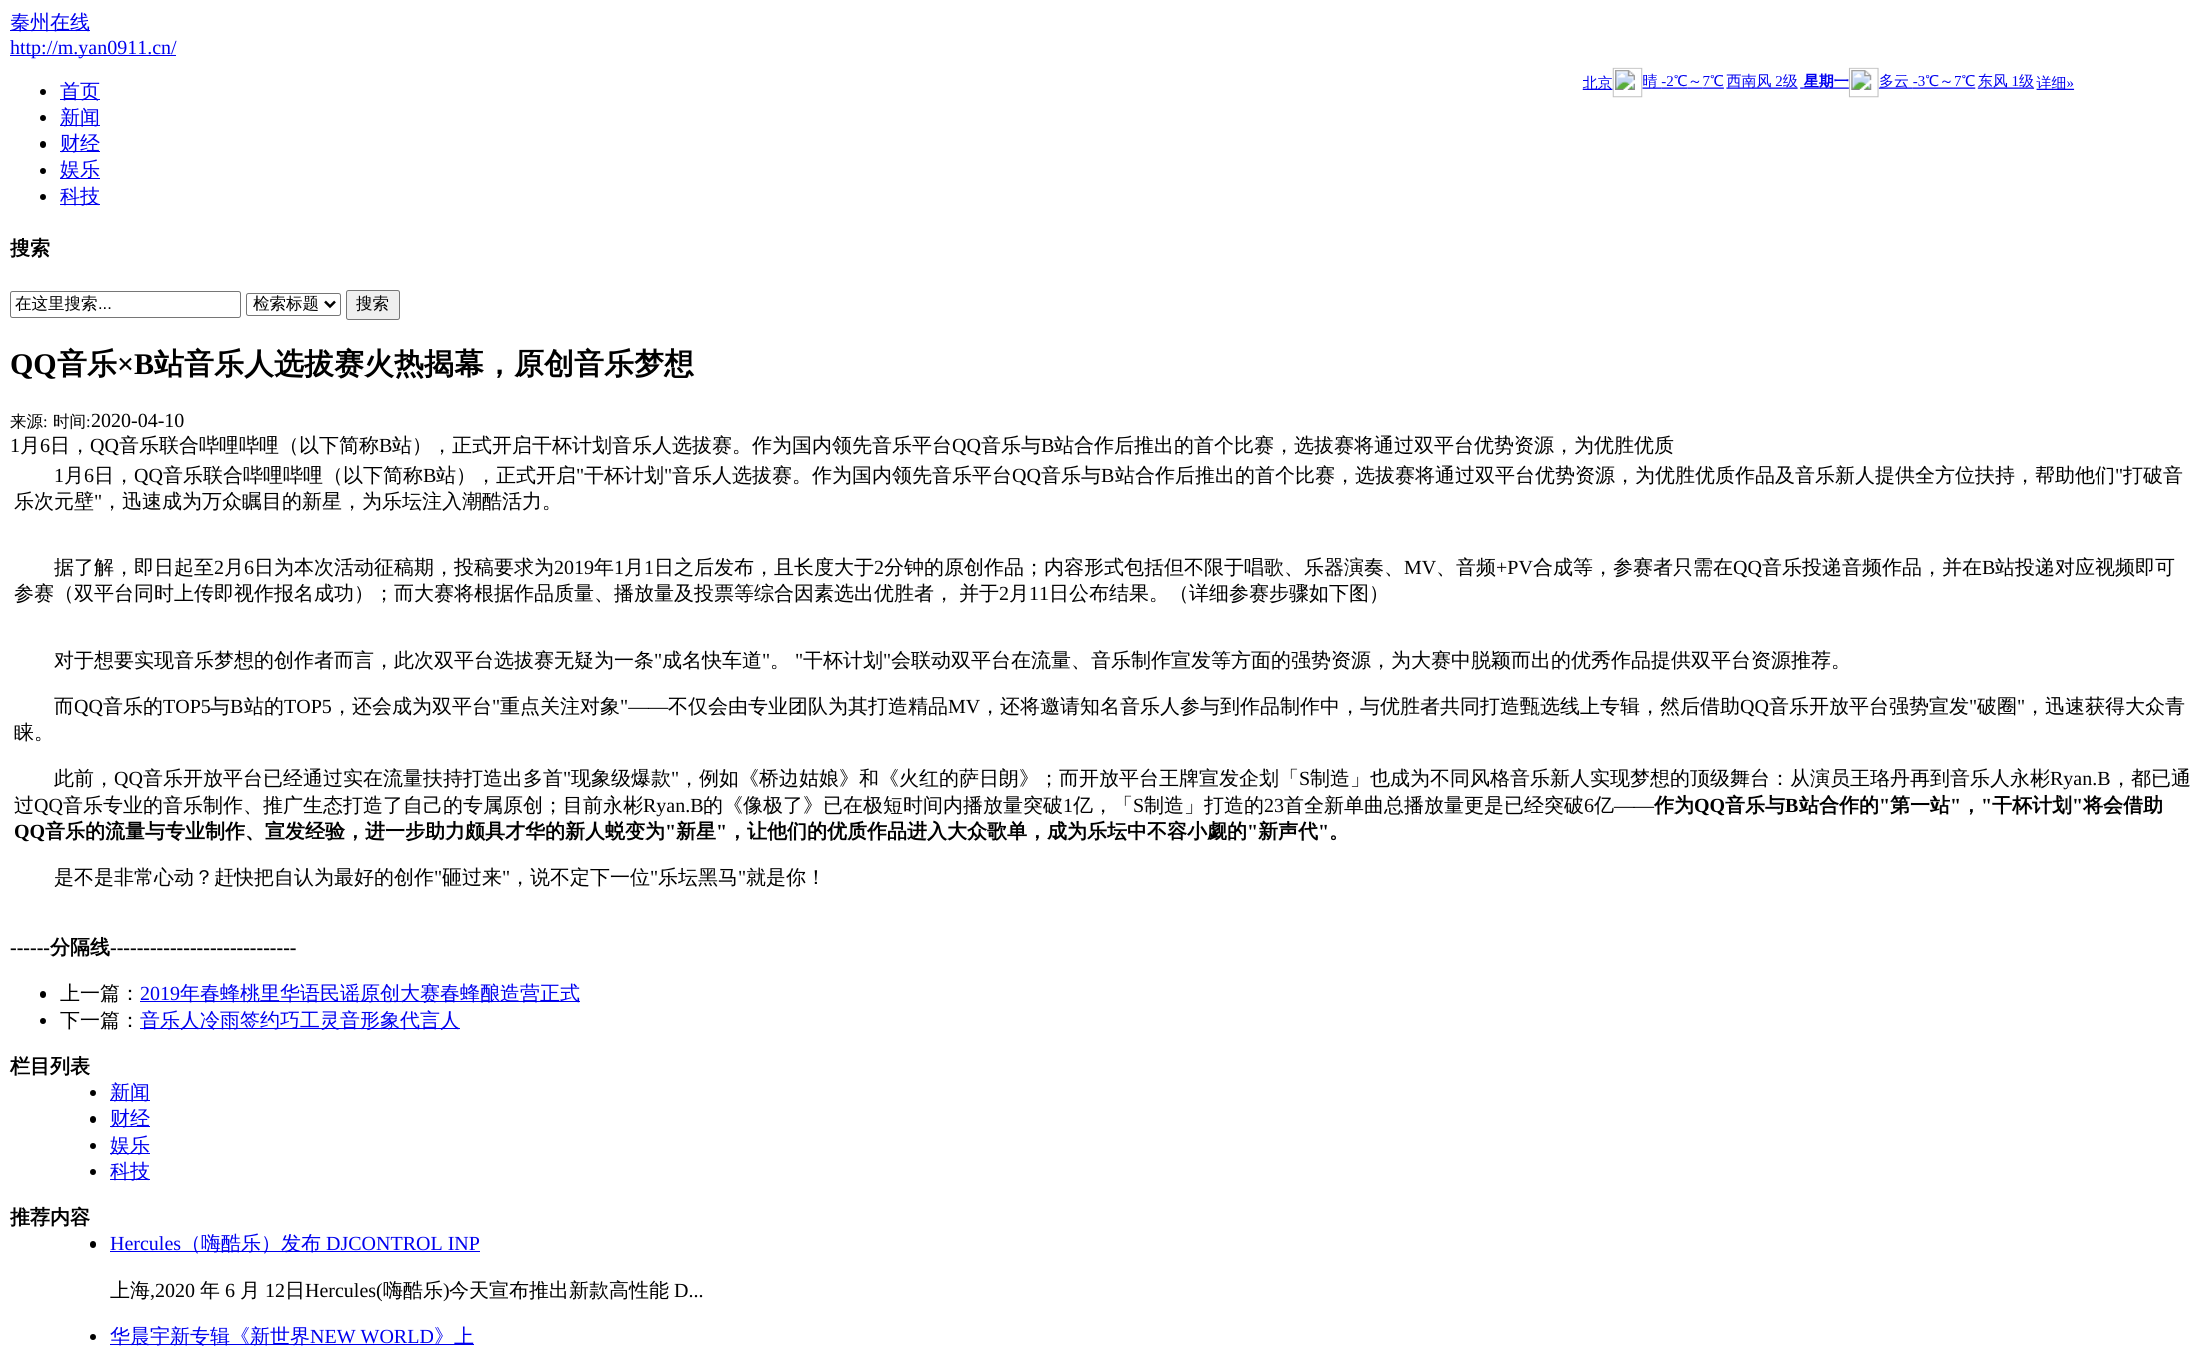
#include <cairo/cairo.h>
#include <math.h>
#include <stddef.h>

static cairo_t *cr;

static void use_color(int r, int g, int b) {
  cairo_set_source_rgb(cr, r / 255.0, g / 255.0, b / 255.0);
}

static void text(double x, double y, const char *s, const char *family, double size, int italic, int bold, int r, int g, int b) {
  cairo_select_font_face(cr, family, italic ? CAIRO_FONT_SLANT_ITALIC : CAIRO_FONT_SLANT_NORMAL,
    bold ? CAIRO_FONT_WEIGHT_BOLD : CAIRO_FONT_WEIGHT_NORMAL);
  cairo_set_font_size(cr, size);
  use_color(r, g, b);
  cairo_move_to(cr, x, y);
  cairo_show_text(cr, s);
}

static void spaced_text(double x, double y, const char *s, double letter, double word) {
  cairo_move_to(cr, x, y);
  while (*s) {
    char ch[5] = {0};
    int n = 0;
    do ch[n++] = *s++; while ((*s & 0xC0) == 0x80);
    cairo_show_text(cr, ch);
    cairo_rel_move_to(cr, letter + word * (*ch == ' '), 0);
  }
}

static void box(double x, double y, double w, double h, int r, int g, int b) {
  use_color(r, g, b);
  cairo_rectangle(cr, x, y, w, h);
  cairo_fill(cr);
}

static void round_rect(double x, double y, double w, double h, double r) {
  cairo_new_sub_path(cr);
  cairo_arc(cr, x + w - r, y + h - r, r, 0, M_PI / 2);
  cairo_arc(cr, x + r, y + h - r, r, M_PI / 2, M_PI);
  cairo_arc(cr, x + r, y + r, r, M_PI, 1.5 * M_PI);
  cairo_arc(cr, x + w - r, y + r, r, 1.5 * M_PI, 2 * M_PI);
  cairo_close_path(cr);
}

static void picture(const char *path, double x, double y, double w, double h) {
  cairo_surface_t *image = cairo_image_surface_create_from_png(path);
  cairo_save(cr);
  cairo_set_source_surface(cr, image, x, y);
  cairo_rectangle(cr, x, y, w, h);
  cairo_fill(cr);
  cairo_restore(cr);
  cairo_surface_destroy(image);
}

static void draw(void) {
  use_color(255, 255, 255);
  cairo_paint(cr);
  box(10, 30, 80, 1, 0, 0, 238);
  box(10, 55, 166, 1, 0, 0, 238);
  picture("img_01.png", 1582, 67, 493, 31);
  use_color(0, 0, 0);
  cairo_arc(cr, 43, 92, 3, 0, 2 * M_PI);
  cairo_fill(cr);
  box(60, 99, 40, 1, 0, 0, 238);
  use_color(0, 0, 0);
  cairo_arc(cr, 43, 118, 3, 0, 2 * M_PI);
  cairo_fill(cr);
  box(60, 125, 40, 1, 0, 0, 238);
  use_color(0, 0, 0);
  round_rect(40, 141, 6, 7, 3);
  cairo_fill(cr);
  box(60, 151, 40, 1, 0, 0, 238);
  use_color(0, 0, 0);
  cairo_arc(cr, 43, 171, 3, 0, 2 * M_PI);
  cairo_fill(cr);
  box(60, 178, 40, 1, 0, 0, 238);
  use_color(0, 0, 0);
  cairo_arc(cr, 43, 197, 3, 0, 2 * M_PI);
  cairo_fill(cr);
  box(60, 204, 40, 1, 0, 0, 238);
  round_rect(10.5, 291.5, 230, 26, 2);
  use_color(118, 118, 118);
  cairo_set_line_width(cr, 1);
  cairo_stroke(cr);
  round_rect(246.5, 293.5, 94, 22, 2);
  cairo_stroke(cr);
  cairo_new_path(cr);
  cairo_move_to(cr, 325, 301.5);
  cairo_line_to(cr, 330, 306.5);
  cairo_line_to(cr, 335, 301.5);
  use_color(0, 0, 0);
  cairo_set_line_width(cr, 2.5);
  cairo_stroke(cr);
  use_color(239, 239, 239);
  round_rect(346.5, 290.5, 53, 29, 2);
  cairo_fill_preserve(cr);
  use_color(118, 118, 118);
  cairo_set_line_width(cr, 1);
  cairo_stroke(cr);
  use_color(0, 0, 0);
  round_rect(40, 991, 6, 7, 3);
  cairo_fill(cr);
  box(140, 1001, 440, 1, 0, 0, 238);
  use_color(0, 0, 0);
  cairo_arc(cr, 43, 1021, 3, 0, 2 * M_PI);
  cairo_fill(cr);
  box(140, 1028, 320, 1, 0, 0, 238);
  use_color(0, 0, 0);
  cairo_arc(cr, 93, 1093, 3, 0, 2 * M_PI);
  cairo_fill(cr);
  box(110, 1100, 40, 1, 0, 0, 238);
  use_color(0, 0, 0);
  round_rect(90, 1116, 6, 7, 3);
  cairo_fill(cr);
  box(110, 1126, 40, 1, 0, 0, 238);
  use_color(0, 0, 0);
  cairo_arc(cr, 93, 1146, 3, 0, 2 * M_PI);
  cairo_fill(cr);
  box(110, 1153, 40, 1, 0, 0, 238);
  use_color(0, 0, 0);
  cairo_arc(cr, 93, 1172, 3, 0, 2 * M_PI);
  cairo_fill(cr);
  box(110, 1179, 40, 1, 0, 0, 238);
  use_color(0, 0, 0);
  round_rect(90, 1241, 6, 7, 3);
  cairo_fill(cr);
  box(110, 1251, 370, 1, 0, 0, 238);
  use_color(0, 0, 0);
  cairo_arc(cr, 93, 1337, 3, 0, 2 * M_PI);
  cairo_fill(cr);
  box(110, 1344, 364, 1, 0, 0, 238);
  text(10, 29, "秦州在线", "WenQuanYi Zen Hei Medium", 20, 0, 0, 0, 0, 238);
  text(10, 54, "http://m.yan0911.cn/", "Liberation Serif", 20, 0, 0, 0, 0, 238);
  text(60, 98, "首页", "WenQuanYi Zen Hei Medium", 20, 0, 0, 0, 0, 238);
  text(60, 124, "新闻", "WenQuanYi Zen Hei Medium", 20, 0, 0, 0, 0, 238);
  text(60, 150, "财经", "WenQuanYi Zen Hei Medium", 20, 0, 0, 0, 0, 238);
  text(60, 176, "娱乐", "WenQuanYi Zen Hei Medium", 20, 0, 0, 0, 0, 238);
  text(60, 203, "科技", "WenQuanYi Zen Hei Medium", 20, 0, 0, 0, 0, 238);
  text(10, 255, "搜索", "WenQuanYi Zen Hei", 20, 0, 1, 0, 0, 0);
  text(15, 309, "在这里搜索", "WenQuanYi Zen Hei Medium", 16.5, 0, 0, 0, 0, 0);
  text(98, 309, "...", "Liberation Sans", 16.5, 0, 0, 0, 0, 0);
  text(253, 309, "检索标题", "WenQuanYi Zen Hei Medium", 16.5, 0, 0, 0, 0, 0);
  text(356, 309, "搜索", "WenQuanYi Zen Hei Medium", 16.5, 0, 0, 0, 0, 0);
  text(10, 374, "QQ", "Liberation Serif", 30, 0, 1, 0, 0, 0);
  text(57, 374, "音乐", "WenQuanYi Zen Hei", 30, 0, 1, 0, 0, 0);
  text(117, 374, "×B", "Liberation Serif", 30, 0, 1, 0, 0, 0);
  text(154, 374, "站音乐人选拔赛火热揭幕，原创音乐梦想", "WenQuanYi Zen Hei", 30, 0, 1, 0, 0, 0);
  text(10, 427, "来源", "WenQuanYi Zen Hei Medium", 16.5, 0, 0, 0, 0, 0);
  text(43, 427, ":", "Liberation Serif", 16.5, 0, 0, 0, 0, 0);
  text(53, 427, "时间", "WenQuanYi Zen Hei Medium", 16.5, 0, 0, 0, 0, 0);
  text(86, 427, ":", "Liberation Serif", 16.5, 0, 0, 0, 0, 0);
  text(91, 427, "2020-04-10", "Liberation Serif", 20, 0, 0, 0, 0, 0);
  text(10, 452, "1", "Liberation Serif", 20, 0, 0, 0, 0, 0);
  text(20, 452, "月", "WenQuanYi Zen Hei Medium", 20, 0, 0, 0, 0, 0);
  text(40, 452, "6", "Liberation Serif", 20, 0, 0, 0, 0, 0);
  text(50, 452, "日，", "WenQuanYi Zen Hei Medium", 20, 0, 0, 0, 0, 0);
  text(90, 452, "QQ", "Liberation Serif", 20, 0, 0, 0, 0, 0);
  text(119, 452, "音乐联合哔哩哔哩（以下简称", "WenQuanYi Zen Hei Medium", 20, 0, 0, 0, 0, 0);
  text(379, 452, "B", "Liberation Serif", 20, 0, 0, 0, 0, 0);
  text(392, 452, "站），正式开启干杯计划音乐人选拔赛。作为国内领先音乐平台", "WenQuanYi Zen Hei Medium", 20, 0, 0, 0, 0, 0);
  text(952, 452, "QQ", "Liberation Serif", 20, 0, 0, 0, 0, 0);
  text(981, 452, "音乐与", "WenQuanYi Zen Hei Medium", 20, 0, 0, 0, 0, 0);
  text(1041, 452, "B", "Liberation Serif", 20, 0, 0, 0, 0, 0);
  text(1054, 452, "站合作后推出的首个比赛，选拔赛将通过双平台优势资源，为优胜优质", "WenQuanYi Zen Hei Medium", 20, 0, 0, 0, 0, 0);
  text(54, 482, "1", "Liberation Serif", 20, 0, 0, 0, 0, 0);
  text(64, 482, "月", "WenQuanYi Zen Hei Medium", 20, 0, 0, 0, 0, 0);
  text(84, 482, "6", "Liberation Serif", 20, 0, 0, 0, 0, 0);
  text(94, 482, "日，", "WenQuanYi Zen Hei Medium", 20, 0, 0, 0, 0, 0);
  text(134, 482, "QQ", "Liberation Serif", 20, 0, 0, 0, 0, 0);
  text(163, 482, "音乐联合哔哩哔哩（以下简称", "WenQuanYi Zen Hei Medium", 20, 0, 0, 0, 0, 0);
  text(423, 482, "B", "Liberation Serif", 20, 0, 0, 0, 0, 0);
  text(436, 482, "站），正式开启", "WenQuanYi Zen Hei Medium", 20, 0, 0, 0, 0, 0);
  text(576, 482, "\"", "Liberation Serif", 20, 0, 0, 0, 0, 0);
  text(584, 482, "干杯计划", "WenQuanYi Zen Hei Medium", 20, 0, 0, 0, 0, 0);
  text(664, 482, "\"", "Liberation Serif", 20, 0, 0, 0, 0, 0);
  text(672, 482, "音乐人选拔赛。作为国内领先音乐平台", "WenQuanYi Zen Hei Medium", 20, 0, 0, 0, 0, 0);
  text(1012, 482, "QQ", "Liberation Serif", 20, 0, 0, 0, 0, 0);
  text(1041, 482, "音乐与", "WenQuanYi Zen Hei Medium", 20, 0, 0, 0, 0, 0);
  text(1101, 482, "B", "Liberation Serif", 20, 0, 0, 0, 0, 0);
  text(1115, 482, "站合作后推出的首个比赛，选拔赛将通过双平台优势资源，为优胜优质作品及音乐新人提供全方位扶持，帮助他们", "WenQuanYi Zen Hei Medium", 20, 0, 0, 0, 0, 0);
  text(2115, 482, "\"", "Liberation Serif", 20, 0, 0, 0, 0, 0);
  text(2123, 482, "打破音", "WenQuanYi Zen Hei Medium", 20, 0, 0, 0, 0, 0);
  text(14, 508, "乐次元壁", "WenQuanYi Zen Hei Medium", 20, 0, 0, 0, 0, 0);
  text(94, 508, "\"", "Liberation Serif", 20, 0, 0, 0, 0, 0);
  text(102, 508, "，迅速成为万众瞩目的新星，为乐坛注入潮酷活力。", "WenQuanYi Zen Hei Medium", 20, 0, 0, 0, 0, 0);
  text(54, 574, "据了解，即日起至", "WenQuanYi Zen Hei Medium", 20, 0, 0, 0, 0, 0);
  text(214, 574, "2", "Liberation Serif", 20, 0, 0, 0, 0, 0);
  text(224, 574, "月", "WenQuanYi Zen Hei Medium", 20, 0, 0, 0, 0, 0);
  text(244, 574, "6", "Liberation Serif", 20, 0, 0, 0, 0, 0);
  text(254, 574, "日为本次活动征稿期，投稿要求为", "WenQuanYi Zen Hei Medium", 20, 0, 0, 0, 0, 0);
  text(554, 574, "2019", "Liberation Serif", 20, 0, 0, 0, 0, 0);
  text(594, 574, "年", "WenQuanYi Zen Hei Medium", 20, 0, 0, 0, 0, 0);
  text(614, 574, "1", "Liberation Serif", 20, 0, 0, 0, 0, 0);
  text(624, 574, "月", "WenQuanYi Zen Hei Medium", 20, 0, 0, 0, 0, 0);
  text(644, 574, "1", "Liberation Serif", 20, 0, 0, 0, 0, 0);
  text(654, 574, "日之后发布，且长度大于", "WenQuanYi Zen Hei Medium", 20, 0, 0, 0, 0, 0);
  text(874, 574, "2", "Liberation Serif", 20, 0, 0, 0, 0, 0);
  text(884, 574, "分钟的原创作品；内容形式包括但不限于唱歌、乐器演奏、", "WenQuanYi Zen Hei Medium", 20, 0, 0, 0, 0, 0);
  text(1404, 574, "MV", "Liberation Serif", 20, 0, 0, 0, 0, 0);
  text(1436, 574, "、音频", "WenQuanYi Zen Hei Medium", 20, 0, 0, 0, 0, 0);
  text(1496, 574, "+PV", "Liberation Serif", 20, 0, 0, 0, 0, 0);
  text(1533, 574, "合成等，参赛者只需在", "WenQuanYi Zen Hei Medium", 20, 0, 0, 0, 0, 0);
  text(1733, 574, "QQ", "Liberation Serif", 20, 0, 0, 0, 0, 0);
  text(1762, 574, "音乐投递音频作品，并在", "WenQuanYi Zen Hei Medium", 20, 0, 0, 0, 0, 0);
  text(1982, 574, "B", "Liberation Serif", 20, 0, 0, 0, 0, 0);
  text(1995, 574, "站投递对应视频即可", "WenQuanYi Zen Hei Medium", 20, 0, 0, 0, 0, 0);
  spaced_text(14, 600, "参赛（双平台同时上传即视作报名成功）；而大赛将根据作品质量、播放量及投票等综合因素选出优胜者， 并于", 0, -1);
  text(999, 600, "2", "Liberation Serif", 20, 0, 0, 0, 0, 0);
  text(1009, 600, "月", "WenQuanYi Zen Hei Medium", 20, 0, 0, 0, 0, 0);
  text(1029, 600, "11", "Liberation Serif", 20, 0, 0, 0, 0, 0);
  text(1049, 600, "日公布结果。（详细参赛步骤如下图）", "WenQuanYi Zen Hei Medium", 20, 0, 0, 0, 0, 0);
  text(54, 667, "对于想要实现音乐梦想的创作者而言，此次双平台选拔赛无疑为一条", "WenQuanYi Zen Hei Medium", 20, 0, 0, 0, 0, 0);
  text(654, 667, "\"", "Liberation Serif", 20, 0, 0, 0, 0, 0);
  text(662, 667, "成名快车道", "WenQuanYi Zen Hei Medium", 20, 0, 0, 0, 0, 0);
  text(762, 667, "\"", "Liberation Serif", 20, 0, 0, 0, 0, 0);
  text(795, 667, "\"", "Liberation Serif", 20, 0, 0, 0, 0, 0);
  text(803, 667, "干杯计划", "WenQuanYi Zen Hei Medium", 20, 0, 0, 0, 0, 0);
  text(883, 667, "\"", "Liberation Serif", 20, 0, 0, 0, 0, 0);
  text(891, 667, "会联动双平台在流量、音乐制作宣发等方面的强势资源，为大赛中脱颖而出的优秀作品提供双平台资源推荐。", "WenQuanYi Zen Hei Medium", 20, 0, 0, 0, 0, 0);
  text(770, 667, "。", "WenQuanYi Zen Hei Medium", 20, 0, 0, 0, 0, 0);
  text(54, 713, "而", "WenQuanYi Zen Hei Medium", 20, 0, 0, 0, 0, 0);
  text(74, 713, "QQ", "Liberation Serif", 20, 0, 0, 0, 0, 0);
  text(103, 713, "音乐的", "WenQuanYi Zen Hei Medium", 20, 0, 0, 0, 0, 0);
  text(163, 713, "TOP5", "Liberation Serif", 20, 0, 0, 0, 0, 0);
  text(210, 713, "与", "WenQuanYi Zen Hei Medium", 20, 0, 0, 0, 0, 0);
  text(230, 713, "B", "Liberation Serif", 20, 0, 0, 0, 0, 0);
  text(244, 713, "站的", "WenQuanYi Zen Hei Medium", 20, 0, 0, 0, 0, 0);
  text(284, 713, "TOP5", "Liberation Serif", 20, 0, 0, 0, 0, 0);
  text(332, 713, "，还会成为双平台", "WenQuanYi Zen Hei Medium", 20, 0, 0, 0, 0, 0);
  text(492, 713, "\"", "Liberation Serif", 20, 0, 0, 0, 0, 0);
  text(500, 713, "重点关注对象", "WenQuanYi Zen Hei Medium", 20, 0, 0, 0, 0, 0);
  text(620, 713, "\"——", "Liberation Serif", 20, 0, 0, 0, 0, 0);
  text(668, 713, "不仅会由专业团队为其打造精品", "WenQuanYi Zen Hei Medium", 20, 0, 0, 0, 0, 0);
  text(948, 713, "MV", "Liberation Serif", 20, 0, 0, 0, 0, 0);
  text(980, 713, "，还将邀请知名音乐人参与到作品制作中，与优胜者共同打造甄选线上专辑，然后借助", "WenQuanYi Zen Hei Medium", 20, 0, 0, 0, 0, 0);
  text(1740, 713, "QQ", "Liberation Serif", 20, 0, 0, 0, 0, 0);
  text(1769, 713, "音乐开放平台强势宣发", "WenQuanYi Zen Hei Medium", 20, 0, 0, 0, 0, 0);
  text(1969, 713, "\"", "Liberation Serif", 20, 0, 0, 0, 0, 0);
  text(1977, 713, "破圈", "WenQuanYi Zen Hei Medium", 20, 0, 0, 0, 0, 0);
  text(2017, 713, "\"", "Liberation Serif", 20, 0, 0, 0, 0, 0);
  text(2025, 713, "，迅速获得大众青", "WenQuanYi Zen Hei Medium", 20, 0, 0, 0, 0, 0);
  text(14, 739, "睐。", "WenQuanYi Zen Hei Medium", 20, 0, 0, 0, 0, 0);
  text(54, 785, "此前，", "WenQuanYi Zen Hei Medium", 20, 0, 0, 0, 0, 0);
  text(114, 785, "QQ", "Liberation Serif", 20, 0, 0, 0, 0, 0);
  text(143, 785, "音乐开放平台已经通过实在流量扶持打造出多首", "WenQuanYi Zen Hei Medium", 20, 0, 0, 0, 0, 0);
  text(563, 785, "\"", "Liberation Serif", 20, 0, 0, 0, 0, 0);
  text(571, 785, "现象级爆款", "WenQuanYi Zen Hei Medium", 20, 0, 0, 0, 0, 0);
  text(671, 785, "\"", "Liberation Serif", 20, 0, 0, 0, 0, 0);
  text(679, 785, "，例如《桥边姑娘》和《火红的萨日朗》；而开放平台王牌宣发企划「", "WenQuanYi Zen Hei Medium", 20, 0, 0, 0, 0, 0);
  text(1299, 785, "S", "Liberation Serif", 20, 0, 0, 0, 0, 0);
  text(1310, 785, "制造」也成为不同风格音乐新人实现梦想的顶级舞台：从演员王珞丹再到音乐人永彬", "WenQuanYi Zen Hei Medium", 20, 0, 0, 0, 0, 0);
  text(2050, 785, "Ryan.B", "Liberation Serif", 20, 0, 0, 0, 0, 0);
  text(2111, 785, "，都已通", "WenQuanYi Zen Hei Medium", 20, 0, 0, 0, 0, 0);
  text(14, 812, "过", "WenQuanYi Zen Hei Medium", 20, 0, 0, 0, 0, 0);
  text(34, 812, "QQ", "Liberation Serif", 20, 0, 0, 0, 0, 0);
  text(63, 812, "音乐专业的音乐制作、推广生态打造了自己的专属原创；目前永彬", "WenQuanYi Zen Hei Medium", 20, 0, 0, 0, 0, 0);
  text(643, 812, "Ryan.B", "Liberation Serif", 20, 0, 0, 0, 0, 0);
  text(703, 812, "的《像极了》已在极短时间内播放量突破", "WenQuanYi Zen Hei Medium", 20, 0, 0, 0, 0, 0);
  text(1063, 812, "1", "Liberation Serif", 20, 0, 0, 0, 0, 0);
  text(1073, 812, "亿，「", "WenQuanYi Zen Hei Medium", 20, 0, 0, 0, 0, 0);
  text(1133, 812, "S", "Liberation Serif", 20, 0, 0, 0, 0, 0);
  text(1144, 812, "制造」打造的", "WenQuanYi Zen Hei Medium", 20, 0, 0, 0, 0, 0);
  text(1264, 812, "23", "Liberation Serif", 20, 0, 0, 0, 0, 0);
  text(1284, 812, "首全新单曲总播放量更是已经突破", "WenQuanYi Zen Hei Medium", 20, 0, 0, 0, 0, 0);
  text(1584, 812, "6", "Liberation Serif", 20, 0, 0, 0, 0, 0);
  text(1594, 812, "亿", "WenQuanYi Zen Hei Medium", 20, 0, 0, 0, 0, 0);
  text(1694, 812, "QQ", "Liberation Serif", 20, 0, 1, 0, 0, 0);
  text(1725, 812, "音乐与", "WenQuanYi Zen Hei", 20, 0, 1, 0, 0, 0);
  text(1785, 812, "B", "Liberation Serif", 20, 0, 1, 0, 0, 0);
  text(1799, 812, "站合作的", "WenQuanYi Zen Hei", 20, 0, 1, 0, 0, 0);
  text(1879, 812, "\"", "Liberation Serif", 20, 0, 1, 0, 0, 0);
  text(1890, 812, "第一站", "WenQuanYi Zen Hei", 20, 0, 1, 0, 0, 0);
  text(1950, 812, "\"", "Liberation Serif", 20, 0, 1, 0, 0, 0);
  text(1981, 812, "\"", "Liberation Serif", 20, 0, 1, 0, 0, 0);
  text(1992, 812, "干杯计划", "WenQuanYi Zen Hei", 20, 0, 1, 0, 0, 0);
  text(2072, 812, "\"", "Liberation Serif", 20, 0, 1, 0, 0, 0);
  text(2083, 812, "将会借助", "WenQuanYi Zen Hei", 20, 0, 1, 0, 0, 0);
  text(1614, 812, "——", "Liberation Serif", 20, 0, 0, 0, 0, 0);
  text(1654, 812, "作为", "WenQuanYi Zen Hei", 20, 0, 1, 0, 0, 0);
  text(1961, 812, "，", "WenQuanYi Zen Hei", 20, 0, 1, 0, 0, 0);
  text(14, 838, "QQ", "Liberation Serif", 20, 0, 1, 0, 0, 0);
  text(45, 838, "音乐的流量与专业制作、宣发经验，进一步助力颇具才华的新人蜕变为", "WenQuanYi Zen Hei", 20, 0, 1, 0, 0, 0);
  text(665, 838, "\"", "Liberation Serif", 20, 0, 1, 0, 0, 0);
  text(676, 838, "新星", "WenQuanYi Zen Hei", 20, 0, 1, 0, 0, 0);
  text(716, 838, "\"", "Liberation Serif", 20, 0, 1, 0, 0, 0);
  text(727, 838, "，让他们的优质作品进入大众歌单，成为乐坛中不容小觑的", "WenQuanYi Zen Hei", 20, 0, 1, 0, 0, 0);
  text(1247, 838, "\"", "Liberation Serif", 20, 0, 1, 0, 0, 0);
  text(1258, 838, "新声代", "WenQuanYi Zen Hei", 20, 0, 1, 0, 0, 0);
  text(1318, 838, "\"", "Liberation Serif", 20, 0, 1, 0, 0, 0);
  text(1329, 838, "。", "WenQuanYi Zen Hei", 20, 0, 1, 0, 0, 0);
  text(54, 884, "是不是非常心动？赶快把自认为最好的创作", "WenQuanYi Zen Hei Medium", 20, 0, 0, 0, 0, 0);
  text(434, 884, "\"", "Liberation Serif", 20, 0, 0, 0, 0, 0);
  text(442, 884, "砸过来", "WenQuanYi Zen Hei Medium", 20, 0, 0, 0, 0, 0);
  text(502, 884, "\"", "Liberation Serif", 20, 0, 0, 0, 0, 0);
  text(510, 884, "，说不定下一位", "WenQuanYi Zen Hei Medium", 20, 0, 0, 0, 0, 0);
  text(650, 884, "\"", "Liberation Serif", 20, 0, 0, 0, 0, 0);
  text(658, 884, "乐坛黑马", "WenQuanYi Zen Hei Medium", 20, 0, 0, 0, 0, 0);
  text(738, 884, "\"", "Liberation Serif", 20, 0, 0, 0, 0, 0);
  text(746, 884, "就是你！", "WenQuanYi Zen Hei Medium", 20, 0, 0, 0, 0, 0);
  text(10, 954, "------", "Liberation Serif", 20, 0, 1, 0, 0, 0);
  text(50, 954, "分隔线", "WenQuanYi Zen Hei", 20, 0, 1, 0, 0, 0);
  text(110, 954, "----------------------------", "Liberation Serif", 20, 0, 1, 0, 0, 0);
  text(60, 1000, "上一篇：", "WenQuanYi Zen Hei Medium", 20, 0, 0, 0, 0, 0);
  text(140, 1000, "2019", "Liberation Serif", 20, 0, 0, 0, 0, 238);
  text(180, 1000, "年春蜂桃里华语民谣原创大赛春蜂酿造营正式", "WenQuanYi Zen Hei Medium", 20, 0, 0, 0, 0, 238);
  text(60, 1027, "下一篇：", "WenQuanYi Zen Hei Medium", 20, 0, 0, 0, 0, 0);
  text(140, 1027, "音乐人冷雨签约巧工灵音形象代言人", "WenQuanYi Zen Hei Medium", 20, 0, 0, 0, 0, 238);
  text(10, 1073, "栏目列表", "WenQuanYi Zen Hei", 20, 0, 1, 0, 0, 0);
  text(110, 1099, "新闻", "WenQuanYi Zen Hei Medium", 20, 0, 0, 0, 0, 238);
  text(110, 1125, "财经", "WenQuanYi Zen Hei Medium", 20, 0, 0, 0, 0, 238);
  text(110, 1152, "娱乐", "WenQuanYi Zen Hei Medium", 20, 0, 0, 0, 0, 238);
  text(110, 1178, "科技", "WenQuanYi Zen Hei Medium", 20, 0, 0, 0, 0, 238);
  text(10, 1224, "推荐内容", "WenQuanYi Zen Hei", 20, 0, 1, 0, 0, 0);
  text(110, 1250, "Hercules", "Liberation Serif", 20, 0, 0, 0, 0, 238);
  text(181, 1250, "（嗨酷乐）发布", "WenQuanYi Zen Hei Medium", 20, 0, 0, 0, 0, 238);
  text(326, 1250, "DJCONTROL INP", "Liberation Serif", 20, 0, 0, 0, 0, 238);
  text(110, 1297, "上海", "WenQuanYi Zen Hei Medium", 20, 0, 0, 0, 0, 0);
  text(150, 1297, ",2020", "Liberation Serif", 20, 0, 0, 0, 0, 0);
  text(200, 1297, "年", "WenQuanYi Zen Hei Medium", 20, 0, 0, 0, 0, 0);
  text(225, 1297, "6", "Liberation Serif", 20, 0, 0, 0, 0, 0);
  text(240, 1297, "月", "WenQuanYi Zen Hei Medium", 20, 0, 0, 0, 0, 0);
  text(265, 1297, "12", "Liberation Serif", 20, 0, 0, 0, 0, 0);
  text(285, 1297, "日", "WenQuanYi Zen Hei Medium", 20, 0, 0, 0, 0, 0);
  text(305, 1297, "Hercules(", "Liberation Serif", 20, 0, 0, 0, 0, 0);
  text(383, 1297, "嗨酷乐", "WenQuanYi Zen Hei Medium", 20, 0, 0, 0, 0, 0);
  text(443, 1297, ")", "Liberation Serif", 20, 0, 0, 0, 0, 0);
  text(449, 1297, "今天宣布推出新款高性能", "WenQuanYi Zen Hei Medium", 20, 0, 0, 0, 0, 0);
  text(674, 1297, "D...", "Liberation Serif", 20, 0, 0, 0, 0, 0);
  text(110, 1343, "华晨宇新专辑《新世界", "WenQuanYi Zen Hei Medium", 20, 0, 0, 0, 0, 238);
  text(310, 1343, "NEW WORLD", "Liberation Serif", 20, 0, 0, 0, 0, 238);
  text(434, 1343, "》上", "WenQuanYi Zen Hei Medium", 20, 0, 0, 0, 0, 238);
}

int main(void) {
  cairo_surface_t *surface = cairo_image_surface_create(CAIRO_FORMAT_RGB24, 2205, 1362);
  cr = cairo_create(surface);
  cairo_font_options_t *options = cairo_font_options_create();
  cairo_font_options_set_hint_metrics(options, CAIRO_HINT_METRICS_OFF);
  cairo_font_options_set_hint_style(options, CAIRO_HINT_STYLE_NONE);
  cairo_set_font_options(cr, options);
  cairo_set_miter_limit(cr, 4);
  draw();
  cairo_surface_write_to_png(surface, "out.png");
  cairo_font_options_destroy(options);
  cairo_destroy(cr);
  cairo_surface_destroy(surface);
  return 0;
}
